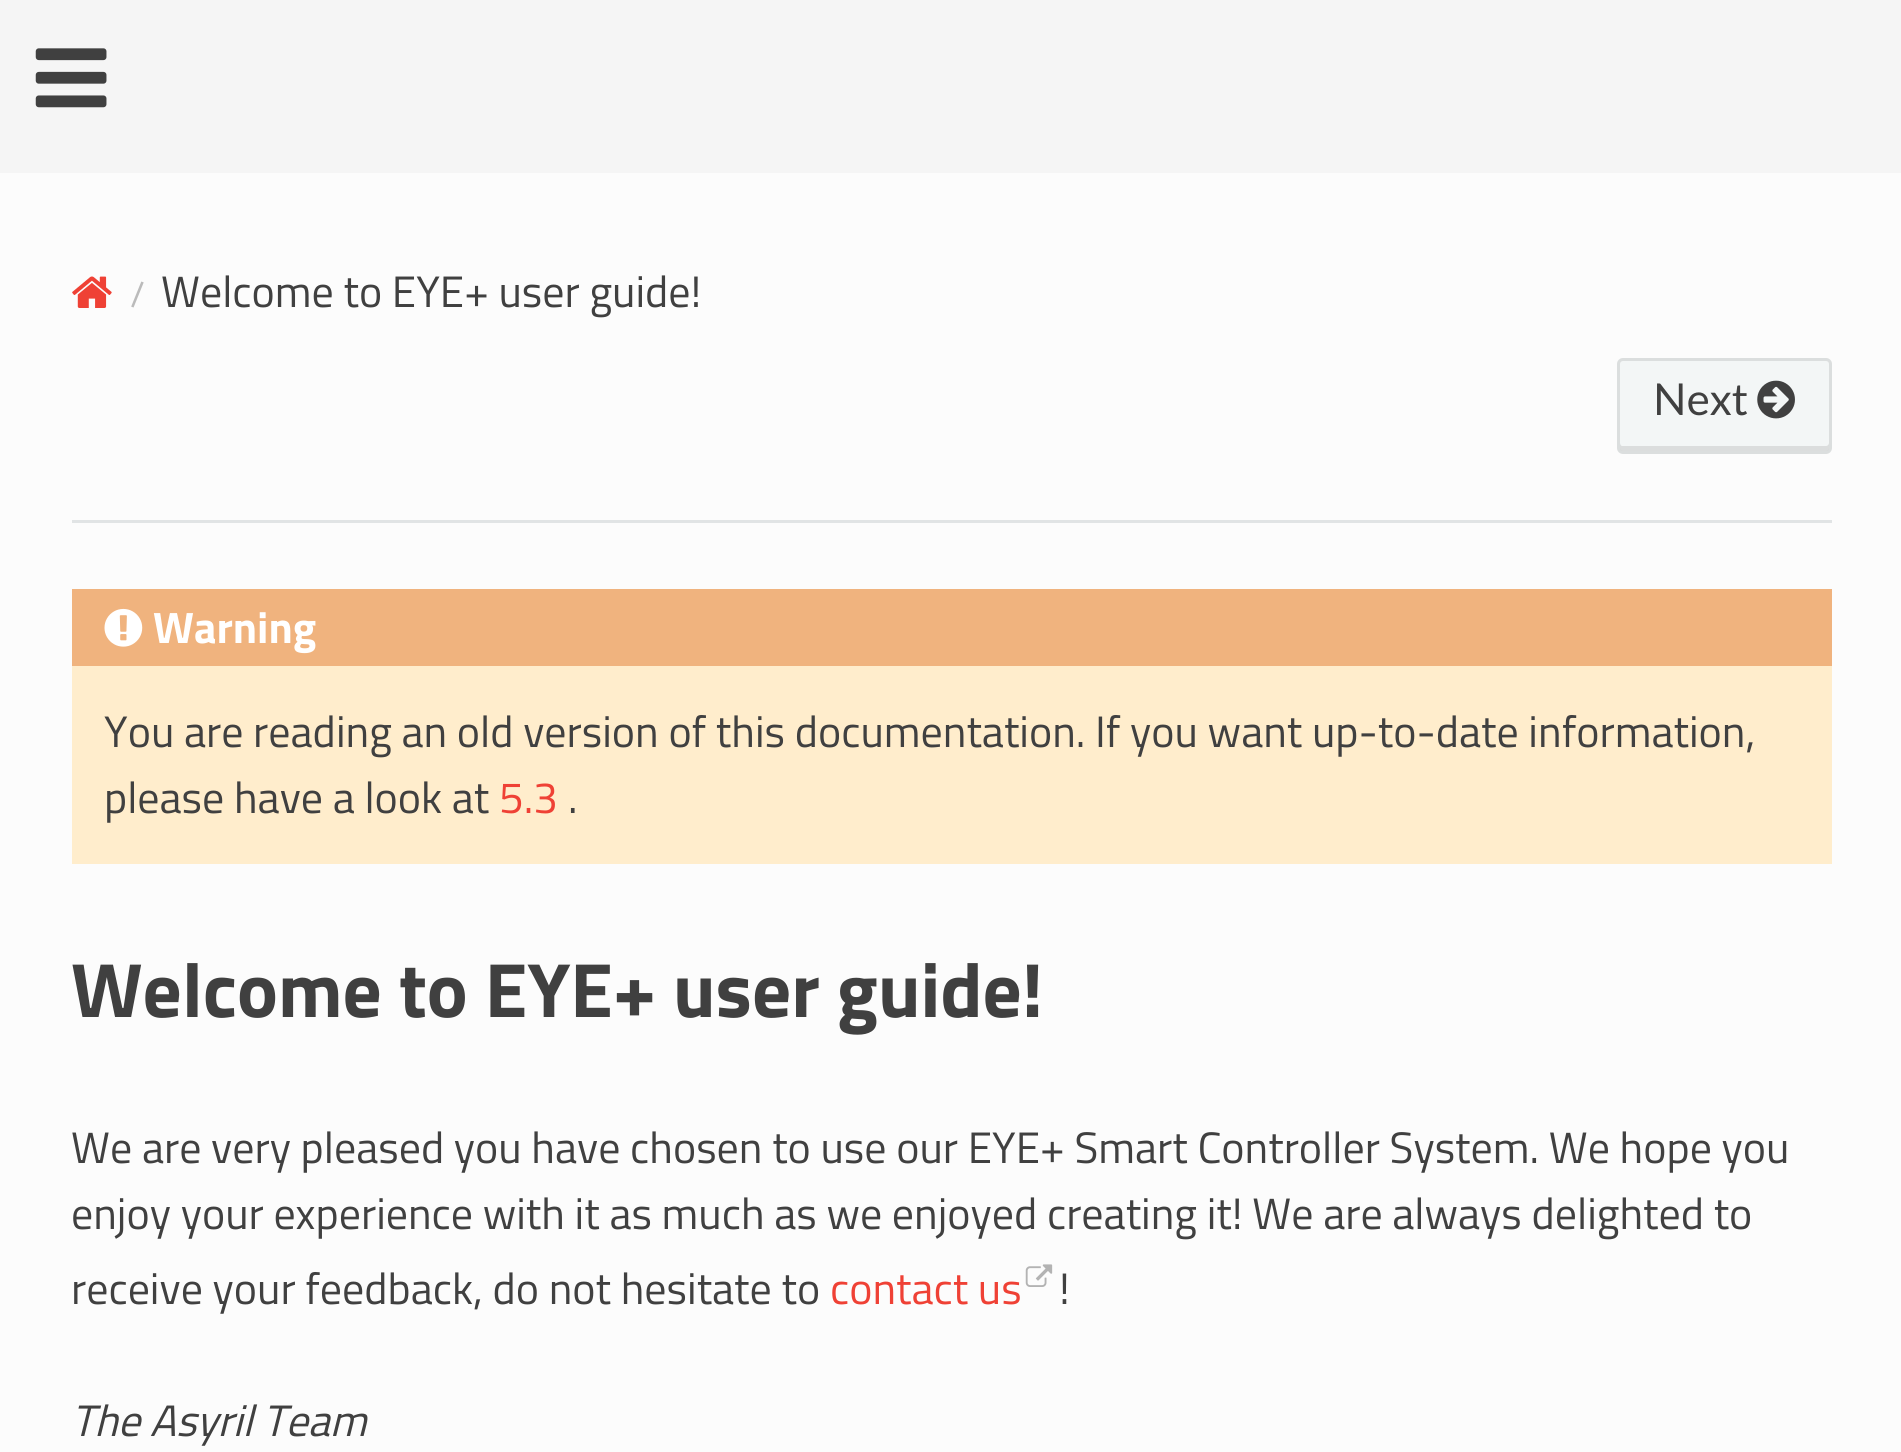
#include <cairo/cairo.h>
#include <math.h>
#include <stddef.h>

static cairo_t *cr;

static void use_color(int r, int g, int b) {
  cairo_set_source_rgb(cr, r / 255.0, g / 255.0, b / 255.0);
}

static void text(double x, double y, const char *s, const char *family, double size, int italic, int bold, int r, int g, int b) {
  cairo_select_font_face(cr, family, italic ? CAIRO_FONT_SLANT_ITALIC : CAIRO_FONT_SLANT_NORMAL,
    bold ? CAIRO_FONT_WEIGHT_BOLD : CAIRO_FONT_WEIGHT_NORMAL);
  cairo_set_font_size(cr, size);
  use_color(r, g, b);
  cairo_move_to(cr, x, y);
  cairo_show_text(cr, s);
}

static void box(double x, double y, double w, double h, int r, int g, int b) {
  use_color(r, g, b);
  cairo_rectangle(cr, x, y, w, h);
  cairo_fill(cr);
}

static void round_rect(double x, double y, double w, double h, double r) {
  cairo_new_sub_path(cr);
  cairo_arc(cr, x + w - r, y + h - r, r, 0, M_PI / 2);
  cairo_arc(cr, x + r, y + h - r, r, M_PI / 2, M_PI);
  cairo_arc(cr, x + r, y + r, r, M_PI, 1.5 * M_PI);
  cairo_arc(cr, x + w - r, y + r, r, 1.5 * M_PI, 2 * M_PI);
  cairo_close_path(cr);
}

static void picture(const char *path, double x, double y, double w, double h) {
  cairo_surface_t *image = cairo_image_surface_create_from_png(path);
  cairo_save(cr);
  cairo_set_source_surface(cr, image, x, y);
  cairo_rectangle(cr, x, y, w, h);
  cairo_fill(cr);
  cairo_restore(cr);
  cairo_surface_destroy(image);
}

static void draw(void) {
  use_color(252, 252, 252);
  cairo_paint(cr);
  box(0, 0, 1901, 173, 245, 245, 245);
  picture("img_01.png", 35, 48, 72, 60);
  picture("img_02.png", 72, 276, 40, 32);
  use_color(243, 246, 246);
  round_rect(1617, 358, 215, 96, 6);
  cairo_fill(cr);
  use_color(219, 221, 221);
  cairo_new_path(cr);
  cairo_move_to(cr, 1620, 443);
  cairo_line_to(cr, 1620, 448);
  cairo_curve_to(cr, 1620, 450, 1621, 451, 1623, 451);
  cairo_line_to(cr, 1826, 451);
  cairo_curve_to(cr, 1828, 451, 1829, 450, 1829, 448);
  cairo_line_to(cr, 1829, 443);
  cairo_curve_to(cr, 1829, 444, 1828, 446, 1826, 446);
  cairo_line_to(cr, 1622, 446);
  cairo_curve_to(cr, 1621, 446, 1620, 444, 1620, 443);
  cairo_close_path(cr);
  cairo_fill(cr);
  round_rect(1618.5, 359.5, 212, 93, 4.5);
  cairo_set_source_rgba(cr, 0, 0, 0, 0.1);
  cairo_set_line_width(cr, 3);
  cairo_stroke(cr);
  picture("img_03.png", 1757, 380, 38, 39);
  box(72, 520, 1760, 3, 225, 228, 229);
  box(72, 666, 1760, 198, 255, 237, 204);
  box(72, 589, 1760, 77, 240, 179, 126);
  picture("img_04.png", 104, 608, 39, 39);
  picture("img_05.png", 1025, 1264, 28, 23);
  text(130, 307, "/", "Titillium Web", 36, 0, 0, 187, 187, 187);
  text(161, 307, "Welcome to EYE+ user guide!", "Titillium Web", 44, 0, 0, 64, 64, 64);
  text(1653, 415, "Next", "Lato", 44, 0, 0, 64, 64, 64);
  text(153, 643, "Warning", "Titillium Web", 44, 0, 1, 255, 255, 255);
  text(104, 747, "You are reading an old version of this documentation. If you want up-to-date information,", "Titillium Web", 44, 0, 0, 64, 64, 64);
  text(104, 813, "please have a look at", "Titillium Web", 44, 0, 0, 64, 64, 64);
  text(499, 813, "5.3", "Titillium Web", 44, 0, 0, 239, 65, 53);
  text(568, 813, ".", "Titillium Web", 44, 0, 0, 64, 64, 64);
  text(71, 1017, "Welcome to EYE+ user guide!", "Titillium Web", 77, 0, 1, 64, 64, 64);
  text(71, 1163, "We are very pleased you have chosen to use our EYE+ Smart Controller System. We hope you", "Titillium Web", 44, 0, 0, 64, 64, 64);
  text(71, 1229, "enjoy your experience with it as much as we enjoyed creating it! We are always delighted to", "Titillium Web", 44, 0, 0, 64, 64, 64);
  text(71, 1304, "receive your feedback, do not hesitate to", "Titillium Web", 44, 0, 0, 64, 64, 64);
  text(830, 1304, "contact us", "Titillium Web", 44, 0, 0, 239, 65, 53);
  text(1059, 1304, "!", "Titillium Web", 44, 0, 0, 64, 64, 64);
  text(71, 1436, "The Asyril Team", "Titillium Web", 44, 1, 0, 64, 64, 64);
}

int main(void) {
  cairo_surface_t *surface = cairo_image_surface_create(CAIRO_FORMAT_RGB24, 1901, 1452);
  cr = cairo_create(surface);
  cairo_font_options_t *options = cairo_font_options_create();
  cairo_font_options_set_hint_metrics(options, CAIRO_HINT_METRICS_OFF);
  cairo_font_options_set_hint_style(options, CAIRO_HINT_STYLE_NONE);
  cairo_set_font_options(cr, options);
  cairo_set_miter_limit(cr, 4);
  draw();
  cairo_surface_write_to_png(surface, "out.png");
  cairo_font_options_destroy(options);
  cairo_destroy(cr);
  cairo_surface_destroy(surface);
  return 0;
}
